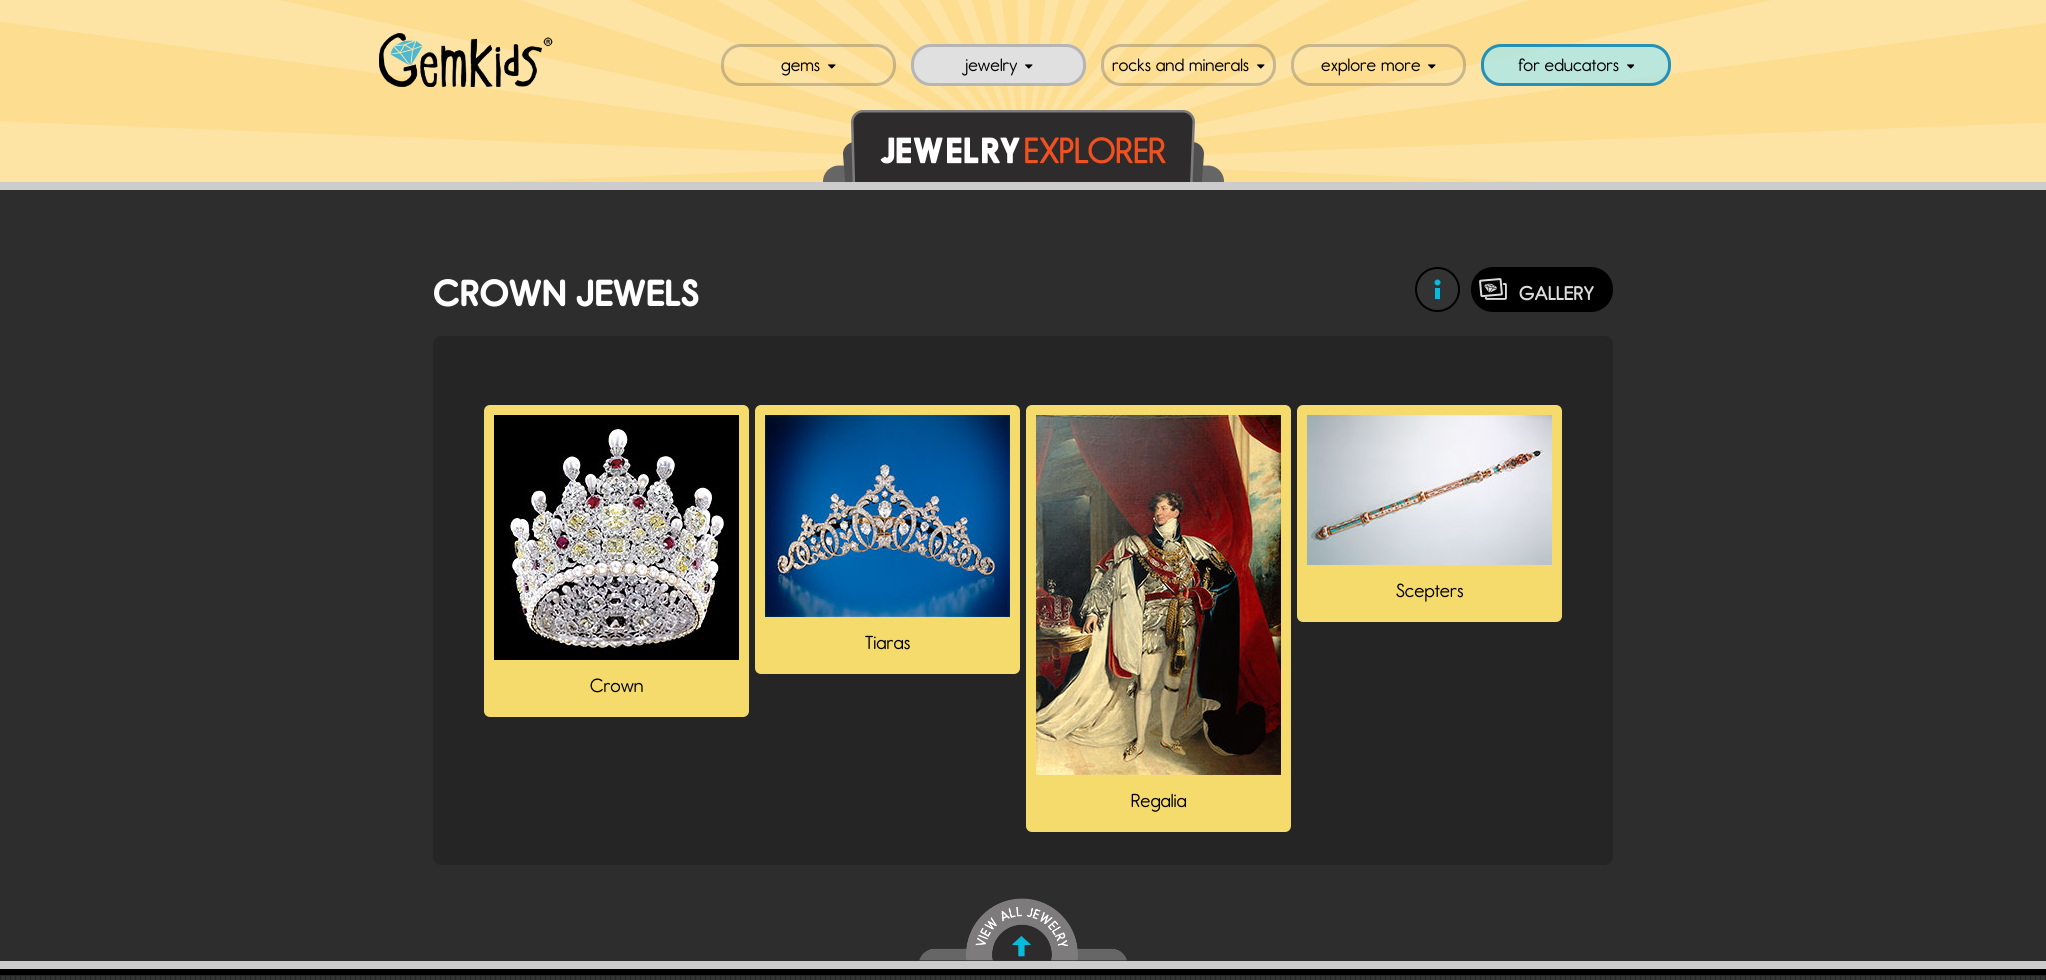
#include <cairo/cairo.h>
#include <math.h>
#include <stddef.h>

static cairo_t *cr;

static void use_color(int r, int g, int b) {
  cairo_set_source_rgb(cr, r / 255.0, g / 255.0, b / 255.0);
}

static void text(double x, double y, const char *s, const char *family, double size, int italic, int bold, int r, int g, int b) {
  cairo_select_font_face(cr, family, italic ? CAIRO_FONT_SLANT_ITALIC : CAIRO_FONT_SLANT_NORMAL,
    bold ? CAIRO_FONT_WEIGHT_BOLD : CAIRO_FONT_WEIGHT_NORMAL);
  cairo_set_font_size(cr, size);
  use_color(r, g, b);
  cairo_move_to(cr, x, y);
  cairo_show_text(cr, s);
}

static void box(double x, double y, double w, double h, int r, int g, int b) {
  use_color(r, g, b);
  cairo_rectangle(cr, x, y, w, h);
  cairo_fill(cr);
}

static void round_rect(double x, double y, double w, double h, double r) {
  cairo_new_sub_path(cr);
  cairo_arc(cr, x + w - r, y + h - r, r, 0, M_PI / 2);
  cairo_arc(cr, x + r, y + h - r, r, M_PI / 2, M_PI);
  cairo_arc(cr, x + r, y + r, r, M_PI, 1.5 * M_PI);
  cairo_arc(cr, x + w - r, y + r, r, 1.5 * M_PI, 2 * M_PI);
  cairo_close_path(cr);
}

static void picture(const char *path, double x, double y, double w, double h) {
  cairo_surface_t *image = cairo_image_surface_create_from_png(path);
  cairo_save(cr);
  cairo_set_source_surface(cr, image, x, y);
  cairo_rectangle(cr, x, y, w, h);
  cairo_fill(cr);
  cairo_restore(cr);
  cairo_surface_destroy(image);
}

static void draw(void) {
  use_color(255, 255, 255);
  cairo_paint(cr);
  picture("img_01.png", 0, 0, 2046, 182);
  picture("img_02.png", 823, 110, 401, 72);
  box(0, 182, 2046, 8, 204, 204, 204);
  picture("img_03.png", 379, 33, 174, 54);
  round_rect(722.5, 45.5, 172, 39, 18.5);
  cairo_set_source_rgba(cr, 0.4, 0.4, 0.4, 0.35);
  cairo_set_line_width(cr, 3);
  cairo_stroke(cr);
  picture("img_04.png", 828, 64, 8, 5);
  use_color(224, 224, 224);
  round_rect(911, 44, 175, 42, 20);
  cairo_fill(cr);
  round_rect(912.5, 45.5, 172, 39, 18.5);
  cairo_set_source_rgba(cr, 0.4, 0.4, 0.4, 0.35);
  cairo_stroke(cr);
  picture("img_05.png", 1025, 64, 8, 5);
  round_rect(1102.5, 45.5, 172, 39, 18.5);
  cairo_stroke(cr);
  picture("img_06.png", 1257, 64, 8, 5);
  round_rect(1292.5, 45.5, 172, 39, 18.5);
  cairo_stroke(cr);
  picture("img_04.png", 1428, 64, 8, 5);
  cairo_set_source_rgba(cr, 0.624, 0.906, 0.957, 0.7);
  round_rect(1481, 44, 190, 42, 20);
  cairo_fill(cr);
  round_rect(1482.5, 45.5, 187, 39, 18.5);
  cairo_set_source_rgba(cr, 0.09, 0.529, 0.698, 0.9);
  cairo_stroke(cr);
  picture("img_07.png", 1627, 64, 7, 5);
  box(0, 190, 2046, 771, 45, 45, 45);
  use_color(51, 51, 51);
  cairo_arc(cr, 1437.5, 289.5, 21.5, 0, 2 * M_PI);
  cairo_fill_preserve(cr);
  use_color(0, 0, 0);
  cairo_set_line_width(cr, 2);
  cairo_stroke(cr);
  picture("img_08.png", 1434, 279, 7, 20);
  round_rect(1472, 268, 140, 43, 21);
  cairo_fill_preserve(cr);
  cairo_stroke(cr);
  picture("img_09.png", 1479, 278, 28, 22);
  use_color(38, 37, 37);
  round_rect(433, 336, 1180, 529, 8);
  cairo_fill(cr);
  use_color(244, 219, 108);
  round_rect(1297, 405, 265, 217, 6);
  cairo_fill(cr);
  picture("img_10.png", 1307, 415, 245, 150);
  round_rect(755, 405, 265, 269, 6);
  cairo_fill(cr);
  picture("img_11.png", 765, 415, 245, 202);
  round_rect(484, 405, 265, 312, 6);
  cairo_fill(cr);
  picture("img_12.png", 494, 415, 245, 245);
  round_rect(1026, 405, 265, 427, 6);
  cairo_fill(cr);
  picture("img_13.png", 1036, 415, 245, 360);
  picture("img_14.png", 919, 898, 208, 63);
  box(0, 961, 2046, 8, 204, 204, 204);
  picture("img_15.png", 0, 975, 2046, 5);
  box(0, 969, 2046, 6, 0, 0, 0);
  text(781, 71, "gems", "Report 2", 18, 0, 0, 0, 0, 0);
  text(964, 71, "jewelry", "Report 2", 18, 0, 0, 0, 0, 0);
  text(1112, 71, "rocks and minerals", "Report 2", 18, 0, 0, 0, 0, 0);
  text(1321, 71, "explore more", "Report 2", 18, 0, 0, 0, 0, 0);
  text(1518, 71, "for educators", "Report 2", 18, 0, 0, 0, 0, 0);
  text(433, 306, "CROWN JEWELS", "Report", 38, 0, 1, 255, 255, 255);
  text(1519, 300, "GALLERY", "Report", 20, 0, 0, 220, 220, 220);
  text(1396, 597, "Scepters", "Report 2", 19, 0, 0, 0, 0, 0);
  text(865, 649, "Tiaras", "Report 2", 19, 0, 0, 0, 0, 0);
  text(590, 692, "Crown", "Report 2", 19, 0, 0, 0, 0, 0);
  text(1131, 807, "Regalia", "Report 2", 19, 0, 0, 0, 0, 0);
}

int main(void) {
  cairo_surface_t *surface = cairo_image_surface_create(CAIRO_FORMAT_RGB24, 2046, 980);
  cr = cairo_create(surface);
  cairo_font_options_t *options = cairo_font_options_create();
  cairo_font_options_set_hint_metrics(options, CAIRO_HINT_METRICS_OFF);
  cairo_font_options_set_hint_style(options, CAIRO_HINT_STYLE_NONE);
  cairo_set_font_options(cr, options);
  cairo_set_miter_limit(cr, 4);
  draw();
  cairo_surface_write_to_png(surface, "out.png");
  cairo_font_options_destroy(options);
  cairo_destroy(cr);
  cairo_surface_destroy(surface);
  return 0;
}
